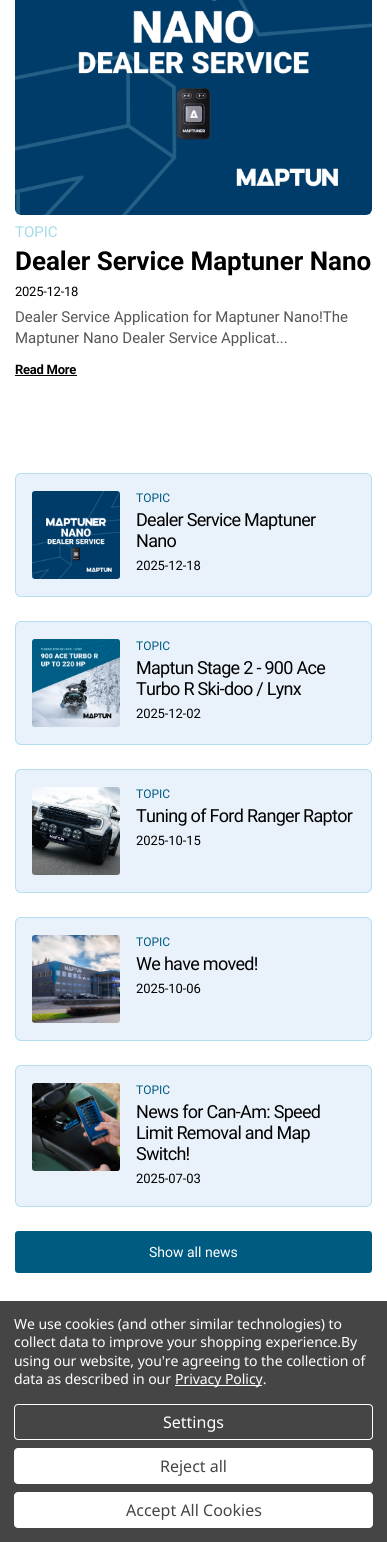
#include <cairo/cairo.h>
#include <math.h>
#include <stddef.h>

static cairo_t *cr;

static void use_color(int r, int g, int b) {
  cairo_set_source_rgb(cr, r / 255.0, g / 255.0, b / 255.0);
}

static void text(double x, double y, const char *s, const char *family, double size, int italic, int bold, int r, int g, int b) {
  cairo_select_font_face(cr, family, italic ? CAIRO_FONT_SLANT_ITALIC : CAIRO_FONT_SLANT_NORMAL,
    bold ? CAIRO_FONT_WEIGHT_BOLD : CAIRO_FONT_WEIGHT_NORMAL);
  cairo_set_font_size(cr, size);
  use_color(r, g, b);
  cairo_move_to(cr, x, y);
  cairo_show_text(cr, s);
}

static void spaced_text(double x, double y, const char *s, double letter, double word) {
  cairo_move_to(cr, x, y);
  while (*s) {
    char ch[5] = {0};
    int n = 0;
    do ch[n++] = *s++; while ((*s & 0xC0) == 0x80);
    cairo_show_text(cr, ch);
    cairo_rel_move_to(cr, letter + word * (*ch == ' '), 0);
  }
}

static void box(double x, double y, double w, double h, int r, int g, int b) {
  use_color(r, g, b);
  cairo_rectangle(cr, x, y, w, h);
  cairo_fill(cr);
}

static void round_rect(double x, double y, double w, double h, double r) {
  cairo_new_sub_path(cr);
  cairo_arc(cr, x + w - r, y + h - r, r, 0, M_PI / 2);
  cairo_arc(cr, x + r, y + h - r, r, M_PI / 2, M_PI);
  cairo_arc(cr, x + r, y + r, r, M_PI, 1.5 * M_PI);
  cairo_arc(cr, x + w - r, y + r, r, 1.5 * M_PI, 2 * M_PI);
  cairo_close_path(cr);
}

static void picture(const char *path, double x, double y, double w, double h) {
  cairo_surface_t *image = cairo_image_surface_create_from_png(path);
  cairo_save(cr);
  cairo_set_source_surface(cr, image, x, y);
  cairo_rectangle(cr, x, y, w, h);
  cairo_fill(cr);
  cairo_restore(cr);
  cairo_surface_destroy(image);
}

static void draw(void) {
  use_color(255, 255, 255);
  cairo_paint(cr);
  picture("img_01.png", 15, 0, 357, 215);
  box(15, 375, 62, 1, 0, 0, 0);
  use_color(233, 241, 250);
  round_rect(15.5, 473.5, 356, 123, 5.5);
  cairo_fill_preserve(cr);
  use_color(179, 223, 241);
  cairo_set_line_width(cr, 1);
  cairo_stroke(cr);
  picture("img_02.png", 32, 491, 88, 88);
  use_color(233, 241, 250);
  round_rect(15.5, 621.5, 356, 123, 5.5);
  cairo_fill_preserve(cr);
  use_color(179, 223, 241);
  cairo_stroke(cr);
  picture("img_03.png", 32, 639, 88, 88);
  use_color(233, 241, 250);
  round_rect(15.5, 769.5, 356, 123, 5.5);
  cairo_fill_preserve(cr);
  use_color(179, 223, 241);
  cairo_stroke(cr);
  picture("img_04.png", 32, 787, 88, 88);
  use_color(233, 241, 250);
  round_rect(15.5, 917.5, 356, 123, 5.5);
  cairo_fill_preserve(cr);
  use_color(179, 223, 241);
  cairo_stroke(cr);
  picture("img_05.png", 32, 935, 88, 88);
  use_color(233, 241, 250);
  round_rect(15.5, 1065.5, 356, 141, 5.5);
  cairo_fill_preserve(cr);
  use_color(179, 223, 241);
  cairo_stroke(cr);
  picture("img_06.png", 32, 1083, 88, 88);
  use_color(0, 91, 130);
  round_rect(15, 1231, 357, 42, 3);
  cairo_fill(cr);
  box(0, 1301, 387, 241, 69, 69, 69);
  box(175, 1385, 87, 1, 255, 255, 255);
  round_rect(14.5, 1404.5, 358, 35, 3.5);
  cairo_stroke(cr);
  round_rect(14, 1448, 359, 36, 4);
  cairo_fill(cr);
  round_rect(14, 1492, 359, 36, 4);
  cairo_fill(cr);
  text(15, 237, "TOPIC", "Roboto", 15, 0, 0, 163, 219, 232);
  text(15, 270, "Dealer Service Maptuner Nano", "Roboto", 26, 0, 1, 0, 0, 0);
  cairo_select_font_face(cr, "Roboto", CAIRO_FONT_SLANT_NORMAL, CAIRO_FONT_WEIGHT_NORMAL);
  cairo_set_font_size(cr, 13);
  spaced_text(15, 296, "2025-12-18", -0.25, 0);
  text(15, 322, "Dealer Service Application for Maptuner Nano!The", "Roboto", 15, 0, 0, 85, 85, 85);
  text(15, 343, "Maptuner Nano Dealer Service Applicat...", "Roboto", 15, 0, 0, 85, 85, 85);
  cairo_select_font_face(cr, "Roboto", CAIRO_FONT_SLANT_NORMAL, CAIRO_FONT_WEIGHT_BOLD);
  cairo_set_font_size(cr, 13);
  use_color(0, 0, 0);
  spaced_text(15, 374, "Read More", -0.25, 0);
  text(136, 502, "TOPIC", "Roboto", 12, 0, 0, 0, 91, 130);
  cairo_set_font_size(cr, 18);
  use_color(0, 0, 0);
  spaced_text(136, 526, "Dealer Service Maptuner", -0.7, 0);
  spaced_text(136, 547, "Nano", -0.7, 0);
  cairo_set_font_size(cr, 13);
  spaced_text(136, 570, "2025-12-18", -0.1, 0);
  text(136, 650, "TOPIC", "Roboto", 12, 0, 0, 0, 91, 130);
  cairo_set_font_size(cr, 18);
  use_color(0, 0, 0);
  spaced_text(136, 674, "Maptun Stage 2 - 900 Ace", -0.7, 0);
  spaced_text(136, 695, "Turbo R Ski-doo / Lynx", -0.7, 0);
  cairo_set_font_size(cr, 13);
  spaced_text(136, 718, "2025-12-02", -0.1, 0);
  text(136, 798, "TOPIC", "Roboto", 12, 0, 0, 0, 91, 130);
  cairo_set_font_size(cr, 18);
  use_color(0, 0, 0);
  spaced_text(136, 822, "Tuning of Ford Ranger Raptor", -0.7, 0);
  cairo_set_font_size(cr, 13);
  spaced_text(136, 845, "2025-10-15", -0.1, 0);
  text(136, 946, "TOPIC", "Roboto", 12, 0, 0, 0, 91, 130);
  cairo_set_font_size(cr, 18);
  use_color(0, 0, 0);
  spaced_text(136, 970, "We have moved!", -0.7, 0);
  cairo_set_font_size(cr, 13);
  spaced_text(136, 993, "2025-10-06", -0.1, 0);
  text(136, 1094, "TOPIC", "Roboto", 12, 0, 0, 0, 91, 130);
  cairo_set_font_size(cr, 18);
  use_color(0, 0, 0);
  spaced_text(136, 1118, "News for Can-Am: Speed", -0.7, 0);
  spaced_text(136, 1139, "Limit Removal and Map", -0.7, 0);
  spaced_text(136, 1160, "Switch!", -0.7, 0);
  cairo_set_font_size(cr, 13);
  spaced_text(136, 1183, "2025-07-03", -0.1, 0);
  text(149, 1257, "Show all news", "Roboto", 14, 0, 0, 255, 255, 255);
  cairo_select_font_face(cr, "Noto Sans", CAIRO_FONT_SLANT_NORMAL, CAIRO_FONT_WEIGHT_NORMAL);
  spaced_text(14, 1329, "We use cookies (and other similar technologies) to", -0.05, 0);
  spaced_text(14, 1347, "collect data to improve your shopping experience.By", -0.05, 0);
  spaced_text(14, 1366, "using our website, you're agreeing to the collection of", -0.05, 0);
  spaced_text(14, 1384, "data as described in our", -0.05, 0);
  spaced_text(175, 1384, "Privacy Policy.", -0.05, 0);
  text(163, 1428, "Settings", "Noto Sans", 16, 0, 0, 255, 255, 255);
  text(160, 1472, "Reject all", "Noto Sans", 16, 0, 0, 69, 69, 69);
  text(126, 1516, "Accept All Cookies", "Noto Sans", 16, 0, 0, 69, 69, 69);
}

int main(void) {
  cairo_surface_t *surface = cairo_image_surface_create(CAIRO_FORMAT_RGB24, 387, 1542);
  cr = cairo_create(surface);
  cairo_font_options_t *options = cairo_font_options_create();
  cairo_font_options_set_hint_metrics(options, CAIRO_HINT_METRICS_OFF);
  cairo_font_options_set_hint_style(options, CAIRO_HINT_STYLE_NONE);
  cairo_set_font_options(cr, options);
  cairo_set_miter_limit(cr, 4);
  draw();
  cairo_surface_write_to_png(surface, "out.png");
  cairo_font_options_destroy(options);
  cairo_destroy(cr);
  cairo_surface_destroy(surface);
  return 0;
}
